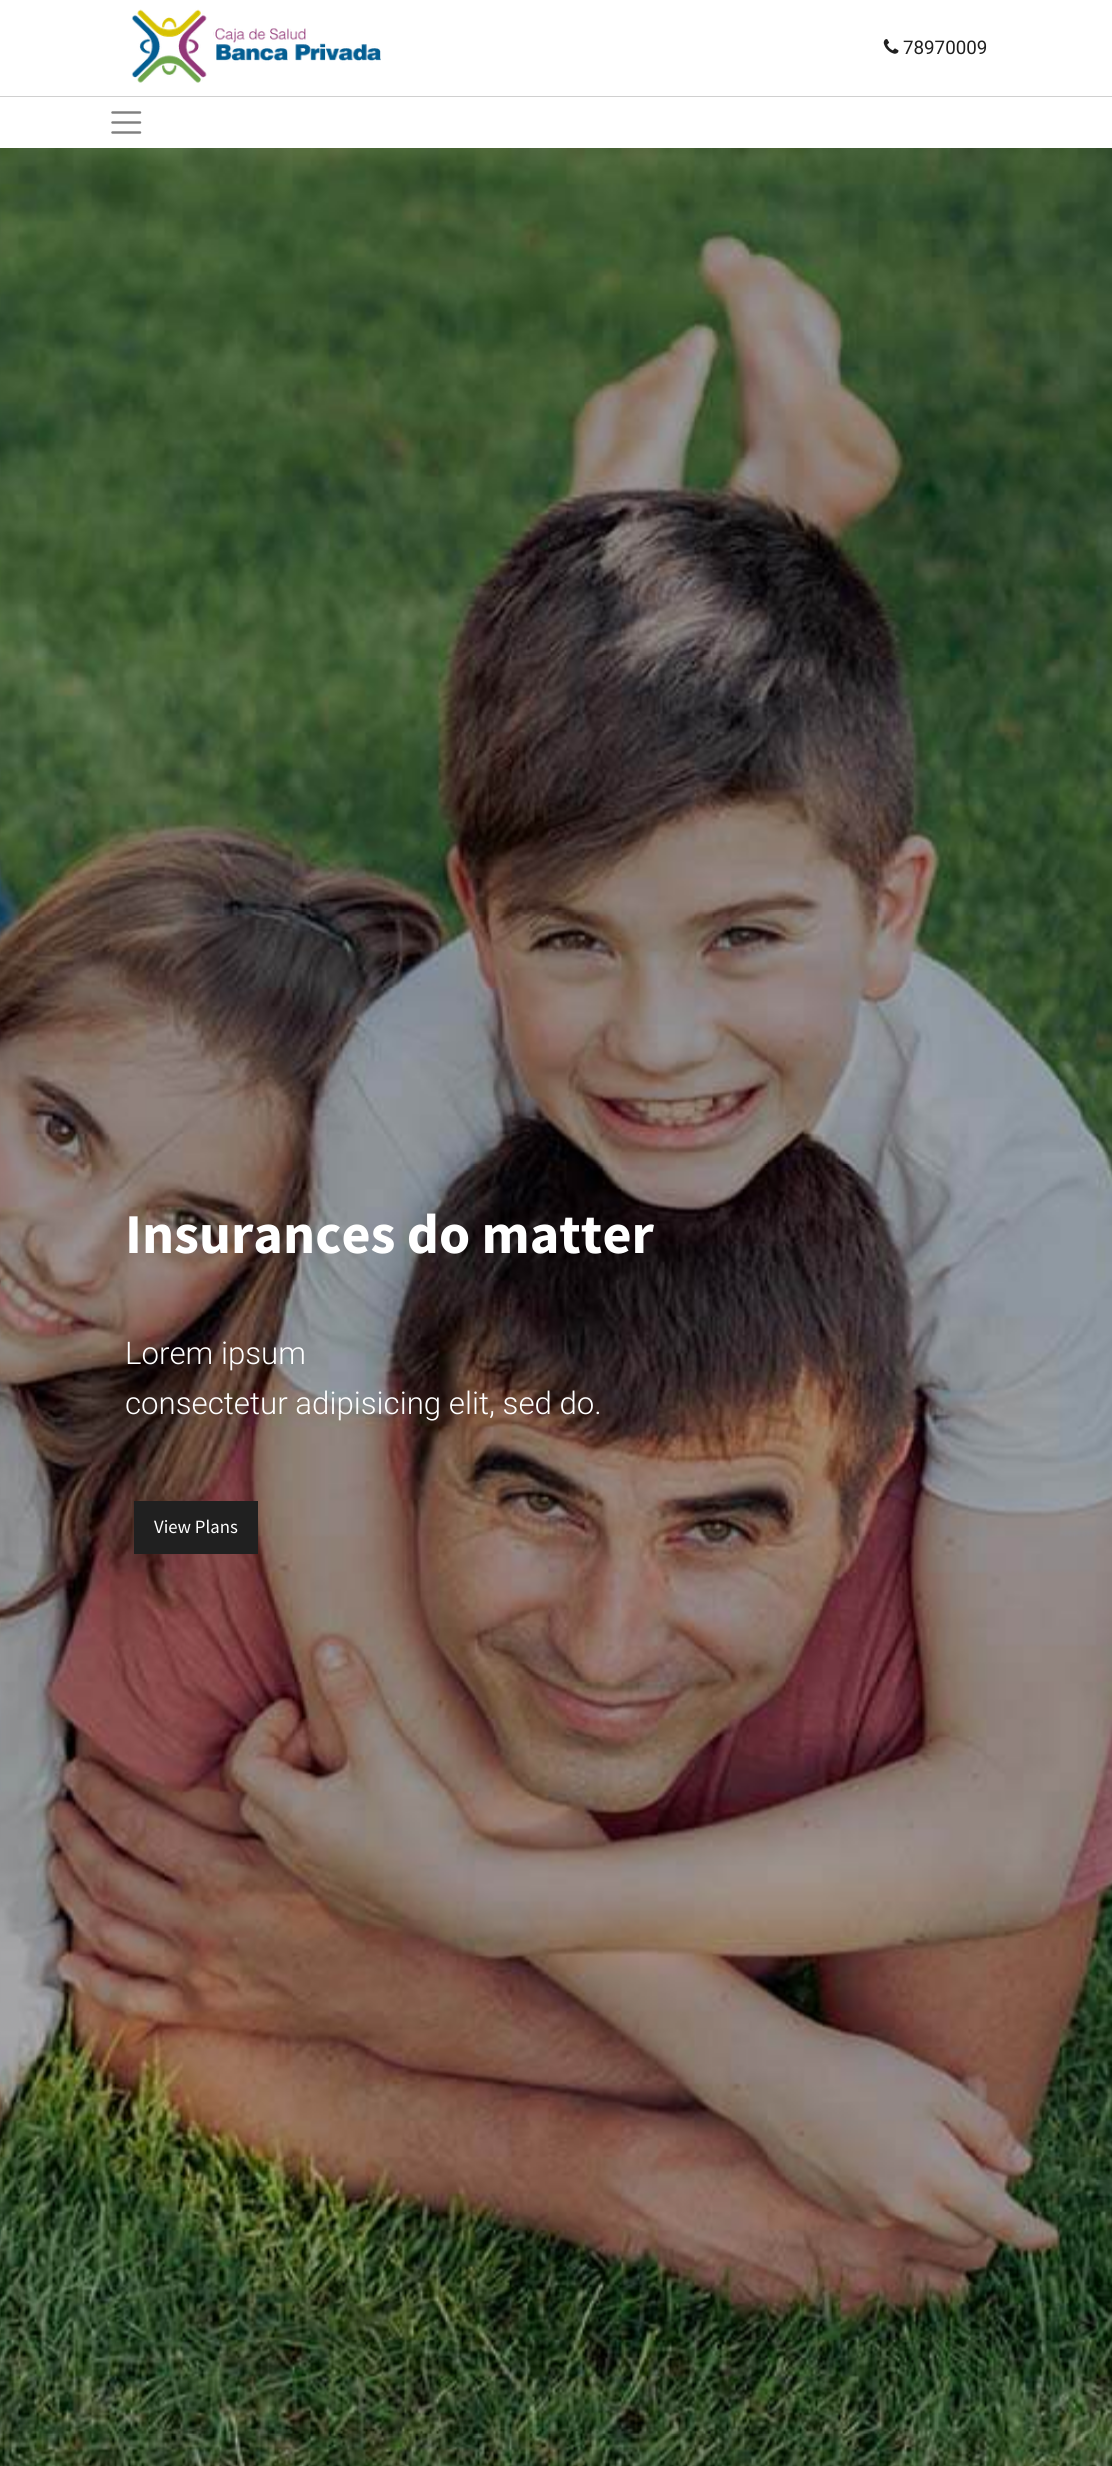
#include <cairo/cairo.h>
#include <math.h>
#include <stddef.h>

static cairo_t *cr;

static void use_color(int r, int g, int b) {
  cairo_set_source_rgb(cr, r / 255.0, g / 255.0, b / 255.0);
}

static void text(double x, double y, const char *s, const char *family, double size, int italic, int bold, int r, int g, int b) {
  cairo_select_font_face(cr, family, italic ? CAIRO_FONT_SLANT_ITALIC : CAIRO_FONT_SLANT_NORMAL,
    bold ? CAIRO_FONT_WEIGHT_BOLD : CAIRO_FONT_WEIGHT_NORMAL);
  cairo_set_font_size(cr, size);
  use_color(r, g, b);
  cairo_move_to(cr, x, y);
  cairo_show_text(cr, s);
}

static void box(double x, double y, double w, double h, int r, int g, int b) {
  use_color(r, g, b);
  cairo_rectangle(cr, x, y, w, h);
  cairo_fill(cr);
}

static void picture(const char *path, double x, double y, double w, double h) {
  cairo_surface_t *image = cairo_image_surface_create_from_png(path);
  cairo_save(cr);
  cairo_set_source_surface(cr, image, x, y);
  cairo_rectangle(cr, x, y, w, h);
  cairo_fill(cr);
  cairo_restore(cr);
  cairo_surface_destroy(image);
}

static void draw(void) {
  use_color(255, 255, 255);
  cairo_paint(cr);
  picture("img_01.png", 131, 9, 250, 74);
  picture("img_02.png", 883, 39, 16, 15);
  box(0, 96, 1112, 1, 208, 208, 208);
  cairo_new_path(cr);
  cairo_move_to(cr, 112.5, 112.5);
  cairo_line_to(cr, 140, 112.5);
  cairo_move_to(cr, 112.5, 122.5);
  cairo_line_to(cr, 140, 122.5);
  cairo_move_to(cr, 112.5, 132.5);
  cairo_line_to(cr, 140, 132.5);
  use_color(128, 128, 128);
  cairo_set_line_width(cr, 2.5);
  cairo_set_line_cap(cr, CAIRO_LINE_CAP_ROUND);
  cairo_stroke(cr);
  picture("img_03.png", 0, 148, 1112, 2318);
  box(134, 1501, 124, 53, 32, 32, 32);
  text(903, 54, "78970009", "Roboto", 18.75, 0, 0, 32, 32, 32);
  text(125, 1253, "Insurances do matter", "Source Sans Pro", 56.25, 0, 1, 255, 255, 255);
  text(125, 1364, "Lorem ipsum", "Roboto Light", 31.25, 0, 0, 255, 255, 255);
  text(125, 1414, "consectetur adipisicing elit, sed do.", "Roboto Light", 31.25, 0, 0, 255, 255, 255);
  text(154, 1533, "View Plans", "Source Sans Pro", 18.75, 0, 0, 255, 255, 255);
}

int main(void) {
  cairo_surface_t *surface = cairo_image_surface_create(CAIRO_FORMAT_RGB24, 1112, 2466);
  cr = cairo_create(surface);
  cairo_font_options_t *options = cairo_font_options_create();
  cairo_font_options_set_hint_metrics(options, CAIRO_HINT_METRICS_OFF);
  cairo_font_options_set_hint_style(options, CAIRO_HINT_STYLE_NONE);
  cairo_set_font_options(cr, options);
  cairo_set_miter_limit(cr, 4);
  draw();
  cairo_surface_write_to_png(surface, "out.png");
  cairo_font_options_destroy(options);
  cairo_destroy(cr);
  cairo_surface_destroy(surface);
  return 0;
}
